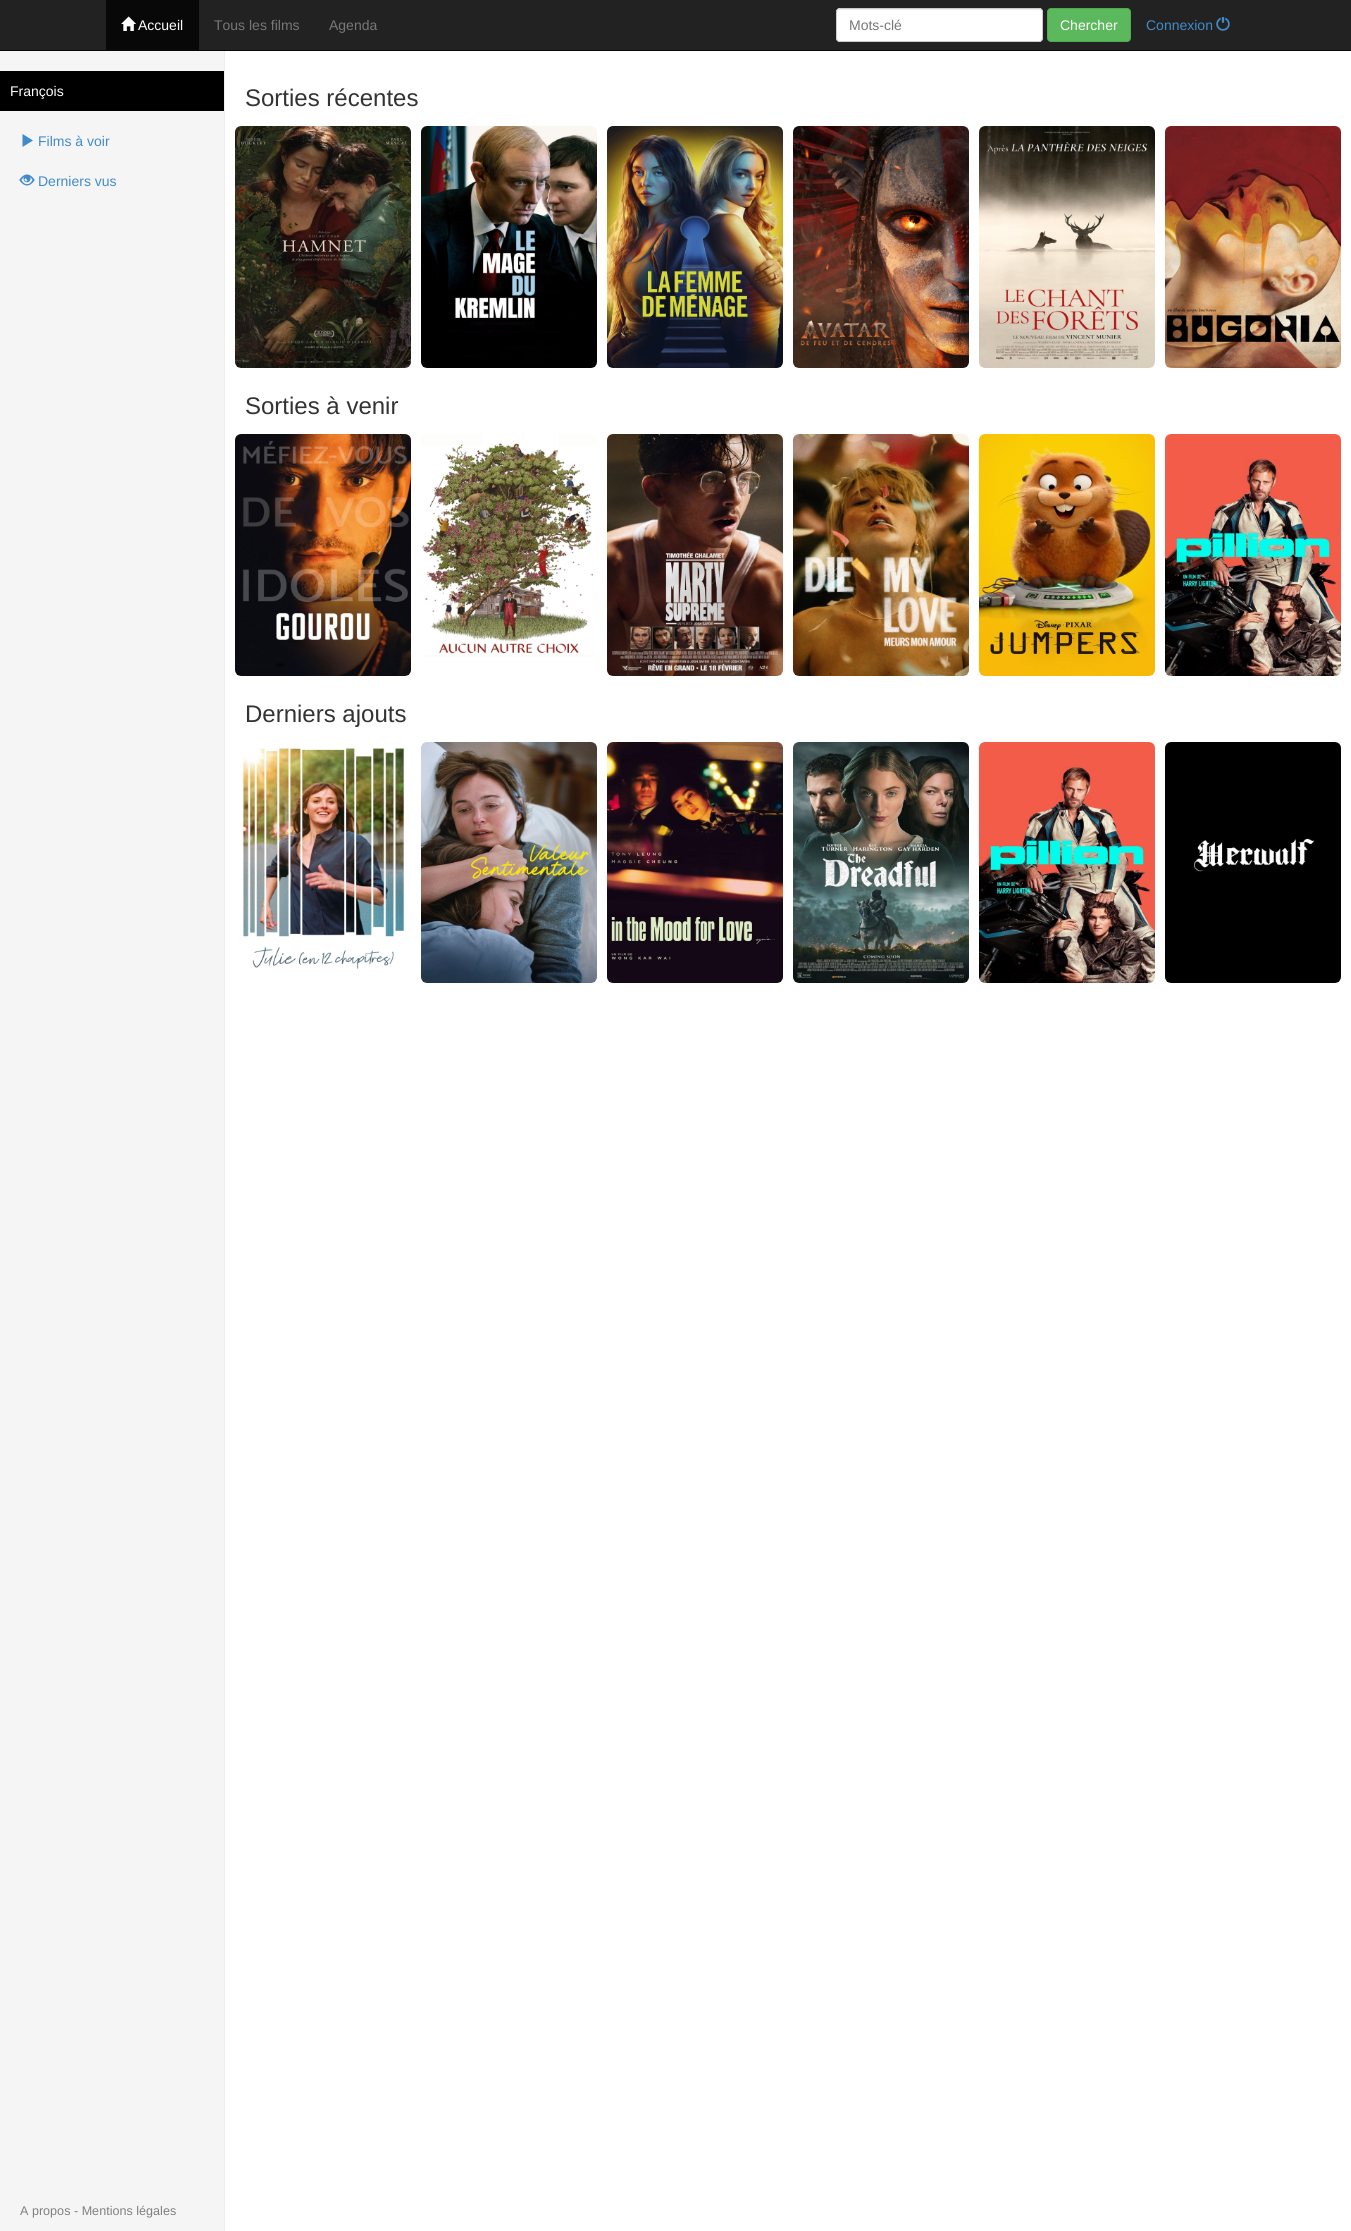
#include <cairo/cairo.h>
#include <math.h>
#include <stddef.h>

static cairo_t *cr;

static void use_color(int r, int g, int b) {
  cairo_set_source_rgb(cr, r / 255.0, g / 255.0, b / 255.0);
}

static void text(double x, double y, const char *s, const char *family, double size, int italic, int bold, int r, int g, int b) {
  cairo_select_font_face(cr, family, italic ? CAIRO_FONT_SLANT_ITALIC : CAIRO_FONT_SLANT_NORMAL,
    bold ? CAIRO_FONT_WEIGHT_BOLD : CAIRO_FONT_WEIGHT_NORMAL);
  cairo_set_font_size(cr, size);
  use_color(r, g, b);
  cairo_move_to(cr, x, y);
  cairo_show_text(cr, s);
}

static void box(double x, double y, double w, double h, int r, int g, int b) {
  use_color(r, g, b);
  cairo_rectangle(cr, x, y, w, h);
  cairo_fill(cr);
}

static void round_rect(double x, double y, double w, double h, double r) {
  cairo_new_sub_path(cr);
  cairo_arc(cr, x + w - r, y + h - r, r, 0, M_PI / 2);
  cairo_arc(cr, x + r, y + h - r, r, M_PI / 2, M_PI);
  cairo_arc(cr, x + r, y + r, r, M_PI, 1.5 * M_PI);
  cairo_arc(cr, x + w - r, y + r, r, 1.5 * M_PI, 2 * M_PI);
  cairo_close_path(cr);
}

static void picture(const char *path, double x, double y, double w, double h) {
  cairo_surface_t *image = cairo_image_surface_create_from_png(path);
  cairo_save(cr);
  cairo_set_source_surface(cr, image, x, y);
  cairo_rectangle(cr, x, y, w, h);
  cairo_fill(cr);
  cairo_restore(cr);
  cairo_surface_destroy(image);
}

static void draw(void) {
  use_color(255, 255, 255);
  cairo_paint(cr);
  box(0, 0, 1351, 50, 34, 34, 34);
  box(0, 50, 1351, 1, 8, 8, 8);
  box(106, 0, 93, 50, 8, 8, 8);
  picture("img_01.png", 121, 16, 15, 15);
  use_color(255, 255, 255);
  round_rect(836, 8, 207, 34, 4);
  cairo_fill(cr);
  use_color(236, 236, 236);
  cairo_new_path(cr);
  cairo_move_to(cr, 840, 10);
  cairo_line_to(cr, 1039, 10);
  cairo_curve_to(cr, 1041, 10, 1042, 11, 1042, 13);
  cairo_curve_to(cr, 1042, 11, 1041, 9, 1039, 9);
  cairo_line_to(cr, 840, 9);
  cairo_curve_to(cr, 838, 9, 837, 11, 837, 13);
  cairo_curve_to(cr, 837, 11, 838, 10, 840, 10);
  cairo_close_path(cr);
  cairo_fill(cr);
  round_rect(836.5, 8.5, 206, 33, 3.5);
  use_color(204, 204, 204);
  cairo_set_line_width(cr, 1);
  cairo_stroke(cr);
  use_color(92, 184, 92);
  round_rect(1047.5, 8.5, 83, 33, 3.5);
  cairo_fill_preserve(cr);
  use_color(76, 174, 76);
  cairo_stroke(cr);
  picture("img_02.png", 1216, 17, 14, 14);
  box(0, 51, 224, 2180, 245, 245, 245);
  box(224, 51, 1, 2180, 238, 238, 238);
  box(0, 71, 224, 40, 0, 0, 0);
  use_color(66, 139, 202);
  cairo_new_path(cr);
  cairo_move_to(cr, 22.5, 147);
  cairo_line_to(cr, 33, 140.5);
  cairo_line_to(cr, 22.5, 134);
  cairo_close_path(cr);
  cairo_fill(cr);
  picture("img_03.png", 19, 174, 16, 12);
  picture("img_04.png", 235, 126, 176, 242);
  picture("img_05.png", 421, 126, 176, 242);
  picture("img_06.png", 607, 126, 176, 242);
  picture("img_07.png", 793, 126, 176, 242);
  picture("img_08.png", 979, 126, 176, 242);
  picture("img_09.png", 1165, 126, 176, 242);
  picture("img_10.png", 235, 434, 176, 242);
  picture("img_11.png", 421, 434, 176, 223);
  picture("img_12.png", 607, 434, 176, 242);
  picture("img_13.png", 793, 434, 176, 242);
  picture("img_14.png", 979, 434, 176, 242);
  picture("img_15.png", 1165, 434, 176, 242);
  picture("img_16.png", 242, 748, 162, 221);
  picture("img_17.png", 421, 742, 176, 241);
  picture("img_18.png", 607, 742, 176, 241);
  picture("img_19.png", 793, 742, 176, 241);
  picture("img_20.png", 979, 742, 176, 241);
  picture("img_21.png", 1165, 742, 176, 241);
  text(138, 30, "Accueil", "Liberation Sans", 14, 0, 0, 255, 255, 255);
  text(214, 30, "Tous les films", "Liberation Sans", 14, 0, 0, 119, 119, 119);
  text(329, 30, "Agenda", "Liberation Sans", 14, 0, 0, 119, 119, 119);
  text(849, 30, "Mots-clé", "Liberation Sans", 14, 0, 0, 119, 119, 119);
  text(1060, 30, "Chercher", "Liberation Sans", 14, 0, 0, 255, 255, 255);
  text(1146, 30, "Connexion", "Liberation Sans", 14, 0, 0, 66, 139, 202);
  text(10, 96, "François", "Liberation Sans", 14, 0, 0, 255, 255, 255);
  text(38, 146, "Films à voir", "Liberation Sans", 14, 0, 0, 66, 139, 202);
  text(38, 186, "Derniers vus", "Liberation Sans", 14, 0, 0, 66, 139, 202);
  text(20, 2215, "A propos - Mentions légales", "Liberation Sans", 12.6, 0, 0, 128, 128, 128);
  text(245, 106, "Sorties récentes", "Liberation Sans", 24, 0, 0, 51, 51, 51);
  text(245, 414, "Sorties à venir", "Liberation Sans", 24, 0, 0, 51, 51, 51);
  text(245, 722, "Derniers ajouts", "Liberation Sans", 24, 0, 0, 51, 51, 51);
}

int main(void) {
  cairo_surface_t *surface = cairo_image_surface_create(CAIRO_FORMAT_RGB24, 1351, 2231);
  cr = cairo_create(surface);
  cairo_font_options_t *options = cairo_font_options_create();
  cairo_font_options_set_hint_metrics(options, CAIRO_HINT_METRICS_OFF);
  cairo_font_options_set_hint_style(options, CAIRO_HINT_STYLE_NONE);
  cairo_set_font_options(cr, options);
  cairo_set_miter_limit(cr, 4);
  draw();
  cairo_surface_write_to_png(surface, "out.png");
  cairo_font_options_destroy(options);
  cairo_destroy(cr);
  cairo_surface_destroy(surface);
  return 0;
}
